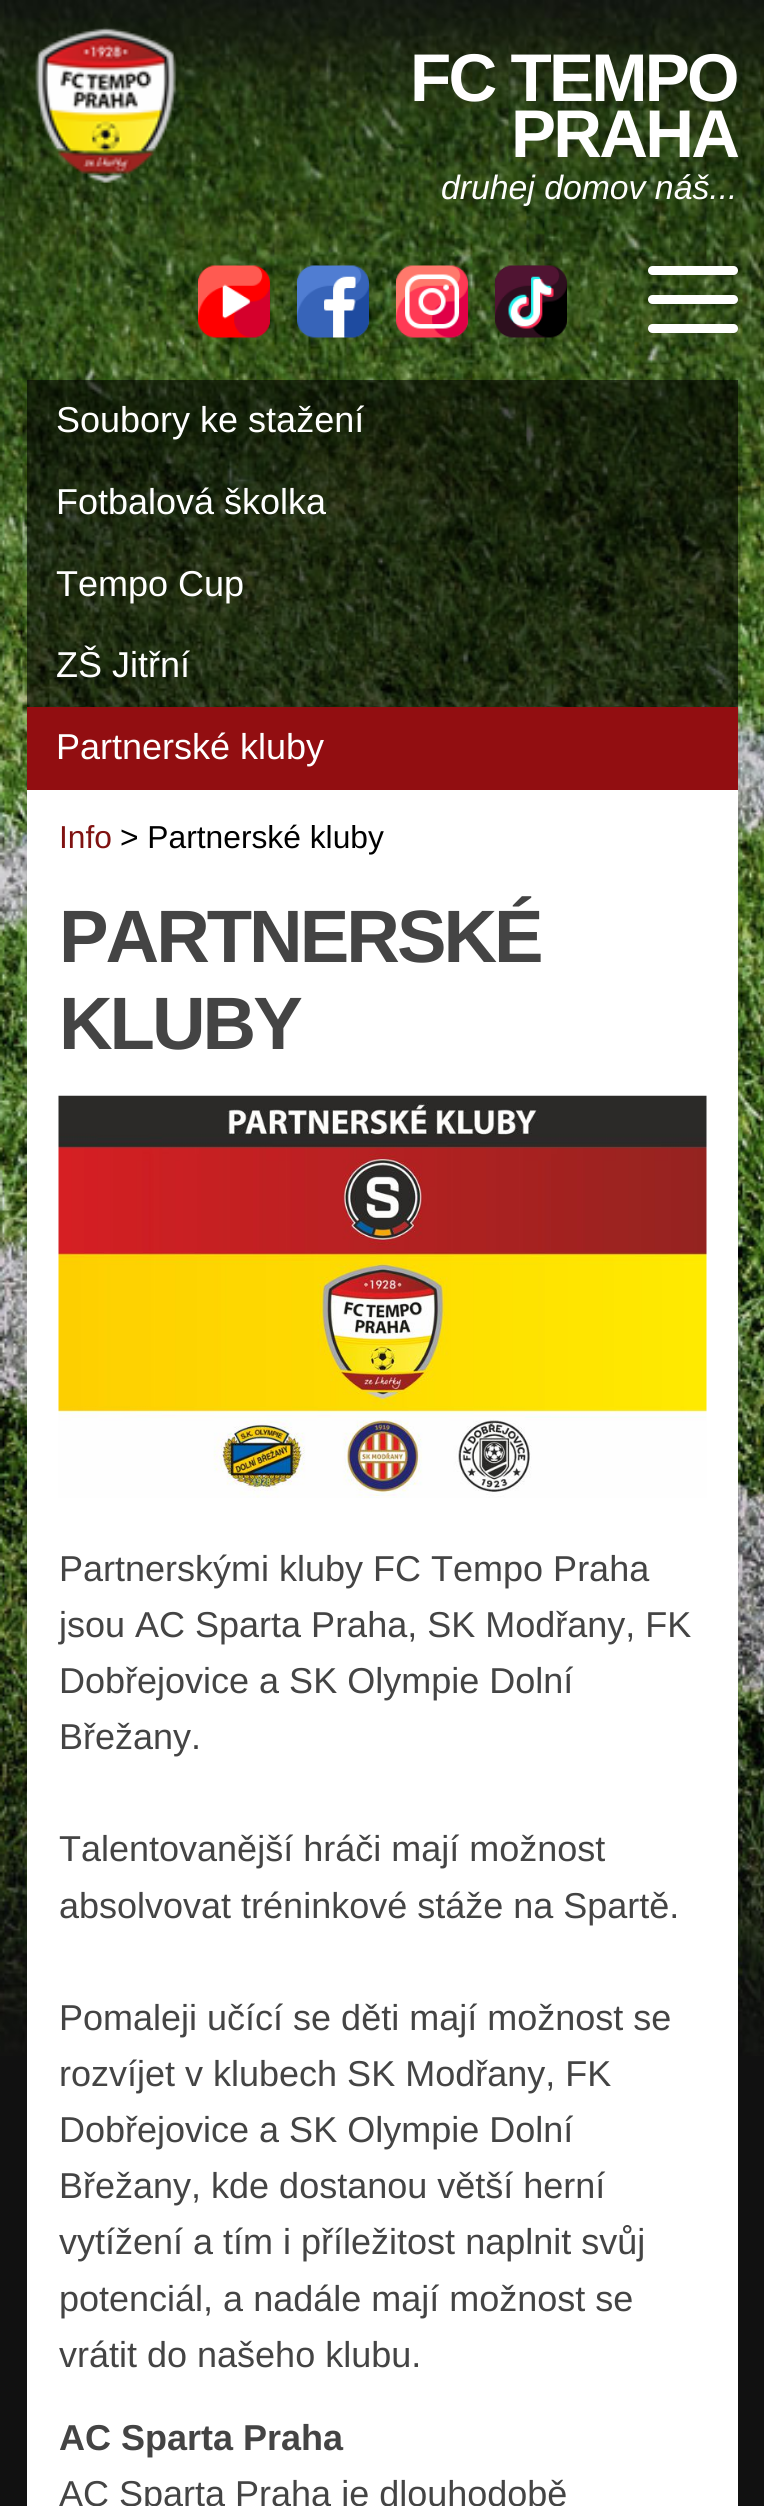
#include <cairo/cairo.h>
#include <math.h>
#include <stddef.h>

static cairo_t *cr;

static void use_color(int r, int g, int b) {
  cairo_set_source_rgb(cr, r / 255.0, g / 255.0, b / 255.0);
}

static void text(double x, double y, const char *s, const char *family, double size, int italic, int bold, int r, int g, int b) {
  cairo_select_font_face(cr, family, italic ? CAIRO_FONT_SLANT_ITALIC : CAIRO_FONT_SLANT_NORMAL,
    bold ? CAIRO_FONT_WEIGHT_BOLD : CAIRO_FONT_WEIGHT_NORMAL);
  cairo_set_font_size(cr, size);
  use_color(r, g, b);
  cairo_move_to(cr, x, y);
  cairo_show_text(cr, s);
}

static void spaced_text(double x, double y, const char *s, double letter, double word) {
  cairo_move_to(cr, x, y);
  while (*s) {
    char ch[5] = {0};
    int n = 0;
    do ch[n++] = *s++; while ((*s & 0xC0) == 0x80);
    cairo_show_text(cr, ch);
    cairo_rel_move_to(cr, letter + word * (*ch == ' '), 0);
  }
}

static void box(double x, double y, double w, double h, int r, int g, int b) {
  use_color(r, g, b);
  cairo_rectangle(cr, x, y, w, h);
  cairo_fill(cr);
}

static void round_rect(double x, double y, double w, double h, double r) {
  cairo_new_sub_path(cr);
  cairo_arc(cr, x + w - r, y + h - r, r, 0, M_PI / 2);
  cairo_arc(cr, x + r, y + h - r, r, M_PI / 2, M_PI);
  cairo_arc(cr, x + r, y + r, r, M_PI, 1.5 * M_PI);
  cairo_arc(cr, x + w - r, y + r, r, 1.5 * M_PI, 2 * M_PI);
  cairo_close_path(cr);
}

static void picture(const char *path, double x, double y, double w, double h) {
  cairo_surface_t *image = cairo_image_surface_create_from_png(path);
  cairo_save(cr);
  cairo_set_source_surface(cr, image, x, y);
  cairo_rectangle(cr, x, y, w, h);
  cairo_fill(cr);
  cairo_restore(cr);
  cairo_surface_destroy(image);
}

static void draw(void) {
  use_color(17, 17, 17);
  cairo_paint(cr);
  picture("img_01.png", 0, 0, 764, 2056);
  picture("img_02.png", 35, 27, 142, 156);
  picture("img_03.png", 198, 265, 72, 73);
  picture("img_04.png", 297, 265, 72, 73);
  picture("img_05.png", 396, 265, 72, 73);
  picture("img_06.png", 495, 265, 72, 73);
  use_color(255, 255, 255);
  round_rect(648, 266, 90, 9, 4.5);
  cairo_fill(cr);
  round_rect(648, 295, 90, 9, 4.5);
  cairo_fill(cr);
  round_rect(648, 324, 90, 9, 4.5);
  cairo_fill(cr);
  cairo_set_source_rgba(cr, 0, 0, 0, 0.6);
  cairo_rectangle(cr, 27, 380, 711, 327);
  cairo_fill(cr);
  box(27, 707, 711, 83, 146, 14, 17);
  box(27, 790, 711, 1716, 255, 255, 255);
  picture("img_07.png", 58, 1095, 649, 403);
  cairo_select_font_face(cr, "Liberation Sans", CAIRO_FONT_SLANT_NORMAL, CAIRO_FONT_WEIGHT_BOLD);
  cairo_set_font_size(cr, 67.5);
  spaced_text(410, 101, "FC TEMPO", -2.75, 0);
  spaced_text(511, 157, "PRAHA", -2.75, 0);
  text(441, 199, "druhej domov náš...", "Liberation Sans", 33.75, 1, 0, 255, 255, 255);
  text(56, 432, "Soubory ke stažení", "Liberation Sans", 36, 0, 0, 255, 255, 255);
  text(56, 514, "Fotbalová školka", "Liberation Sans", 36, 0, 0, 255, 255, 255);
  text(56, 596, "Tempo Cup", "Liberation Sans", 36, 0, 0, 255, 255, 255);
  text(56, 677, "ZŠ Jitřní", "Liberation Sans", 36, 0, 0, 255, 255, 255);
  text(56, 759, "Partnerské kluby", "Liberation Sans", 36, 0, 0, 255, 255, 255);
  text(59, 848, "Info", "Liberation Sans", 31.75, 0, 0, 128, 18, 17);
  text(120, 848, "> Partnerské kluby", "Liberation Sans", 31.75, 0, 0, 0, 0, 0);
  cairo_select_font_face(cr, "Liberation Sans", CAIRO_FONT_SLANT_NORMAL, CAIRO_FONT_WEIGHT_BOLD);
  cairo_set_font_size(cr, 74.25);
  use_color(68, 68, 68);
  spaced_text(59, 962, "PARTNERSKÉ", -3, 0);
  spaced_text(59, 1049, "KLUBY", -3, 0);
  text(59, 1581, "Partnerskými kluby FC Tempo Praha", "Liberation Sans", 36, 0, 0, 68, 68, 68);
  text(59, 1637, "jsou AC Sparta Praha, SK Modřany, FK", "Liberation Sans", 36, 0, 0, 68, 68, 68);
  text(59, 1693, "Dobřejovice a SK Olympie Dolní", "Liberation Sans", 36, 0, 0, 68, 68, 68);
  text(59, 1749, "Břežany.", "Liberation Sans", 36, 0, 0, 68, 68, 68);
  text(59, 1861, "Talentovanější hráči mají možnost", "Liberation Sans", 36, 0, 0, 68, 68, 68);
  text(59, 1918, "absolvovat tréninkové stáže na Spartě.", "Liberation Sans", 36, 0, 0, 68, 68, 68);
  text(59, 2030, "Pomaleji učící se děti mají možnost se", "Liberation Sans", 36, 0, 0, 68, 68, 68);
  text(59, 2086, "rozvíjet v klubech SK Modřany, FK", "Liberation Sans", 36, 0, 0, 68, 68, 68);
  text(59, 2142, "Dobřejovice a SK Olympie Dolní", "Liberation Sans", 36, 0, 0, 68, 68, 68);
  text(59, 2198, "Břežany, kde dostanou větší herní", "Liberation Sans", 36, 0, 0, 68, 68, 68);
  text(59, 2254, "vytížení a tím i příležitost naplnit svůj", "Liberation Sans", 36, 0, 0, 68, 68, 68);
  text(59, 2311, "potenciál, a nadále mají možnost se", "Liberation Sans", 36, 0, 0, 68, 68, 68);
  text(59, 2367, "vrátit do našeho klubu.", "Liberation Sans", 36, 0, 0, 68, 68, 68);
  text(59, 2450, "AC Sparta Praha", "Liberation Sans", 36, 0, 1, 68, 68, 68);
  text(59, 2506, "AC Sparta Praha je dlouhodobě", "Liberation Sans", 36, 0, 0, 68, 68, 68);
}

int main(void) {
  cairo_surface_t *surface = cairo_image_surface_create(CAIRO_FORMAT_RGB24, 764, 2506);
  cr = cairo_create(surface);
  cairo_font_options_t *options = cairo_font_options_create();
  cairo_font_options_set_hint_metrics(options, CAIRO_HINT_METRICS_OFF);
  cairo_font_options_set_hint_style(options, CAIRO_HINT_STYLE_NONE);
  cairo_set_font_options(cr, options);
  cairo_set_miter_limit(cr, 4);
  draw();
  cairo_surface_write_to_png(surface, "out.png");
  cairo_font_options_destroy(options);
  cairo_destroy(cr);
  cairo_surface_destroy(surface);
  return 0;
}
